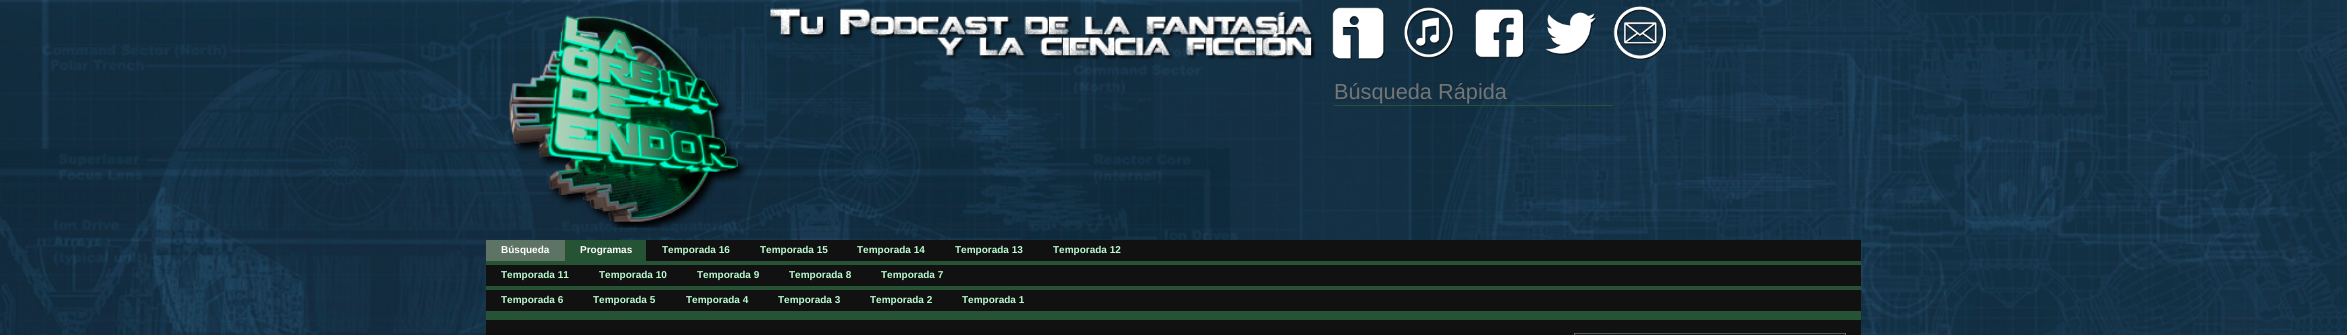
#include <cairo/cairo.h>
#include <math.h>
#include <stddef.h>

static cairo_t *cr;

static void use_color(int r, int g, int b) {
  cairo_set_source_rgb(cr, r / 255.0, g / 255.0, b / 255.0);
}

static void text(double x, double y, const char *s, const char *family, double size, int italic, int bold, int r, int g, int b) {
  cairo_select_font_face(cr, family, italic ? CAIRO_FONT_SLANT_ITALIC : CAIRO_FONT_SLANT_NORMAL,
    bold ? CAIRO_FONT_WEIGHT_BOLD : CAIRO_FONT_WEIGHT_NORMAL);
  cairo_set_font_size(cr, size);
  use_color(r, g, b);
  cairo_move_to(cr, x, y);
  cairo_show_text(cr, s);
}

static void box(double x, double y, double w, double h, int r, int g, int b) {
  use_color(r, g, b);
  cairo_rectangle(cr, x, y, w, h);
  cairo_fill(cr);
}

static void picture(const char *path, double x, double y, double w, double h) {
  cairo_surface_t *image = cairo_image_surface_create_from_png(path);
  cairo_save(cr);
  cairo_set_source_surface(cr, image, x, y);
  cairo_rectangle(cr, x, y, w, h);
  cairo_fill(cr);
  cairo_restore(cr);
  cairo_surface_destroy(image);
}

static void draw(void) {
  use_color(255, 255, 255);
  cairo_paint(cr);
  picture("img_01.png", 0, 0, 2347, 335);
  picture("img_02.png", 509, 8, 807, 220);
  picture("img_03.png", 1332, 7, 53, 53);
  picture("img_04.png", 1404, 7, 51, 52);
  picture("img_05.png", 1475, 9, 50, 50);
  picture("img_06.png", 1545, 12, 52, 44);
  picture("img_07.png", 1613, 6, 54, 54);
  box(1334, 105, 279, 1, 38, 83, 52);
  box(646, 240, 1215, 21, 17, 17, 17);
  box(486, 261, 1375, 4, 38, 83, 52);
  box(486, 240, 79, 21, 93, 116, 101);
  box(565, 240, 81, 21, 38, 83, 52);
  box(486, 265, 1375, 21, 17, 17, 17);
  box(486, 286, 1375, 4, 38, 83, 52);
  box(486, 290, 1375, 21, 17, 17, 17);
  box(486, 311, 1375, 4, 38, 83, 52);
  box(486, 320, 1375, 15, 17, 17, 17);
  box(486, 315, 1375, 5, 38, 83, 52);
  cairo_rectangle(cr, 1574.5, 333.5, 271, 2);
  use_color(93, 116, 101);
  cairo_set_line_width(cr, 1);
  cairo_stroke(cr);
  picture("img_08.png", 1575, 333, 270, 2);
  text(1334, 99, "Búsqueda Rápida", "Liberation Sans", 21.75, 0, 0, 117, 117, 117);
  text(501, 253, "Búsqueda", "Liberation Sans", 10, 0, 1, 255, 255, 255);
  text(580, 253, "Programas", "Liberation Sans", 10, 0, 1, 255, 255, 255);
  text(662, 253, "Temporada 16", "Liberation Sans", 10, 0, 1, 188, 251, 210);
  text(760, 253, "Temporada 15", "Liberation Sans", 10, 0, 1, 188, 251, 210);
  text(857, 253, "Temporada 14", "Liberation Sans", 10, 0, 1, 188, 251, 210);
  text(955, 253, "Temporada 13", "Liberation Sans", 10, 0, 1, 188, 251, 210);
  text(1053, 253, "Temporada 12", "Liberation Sans", 10, 0, 1, 188, 251, 210);
  text(501, 278, "Temporada 11", "Liberation Sans", 10, 0, 1, 188, 251, 210);
  text(599, 278, "Temporada 10", "Liberation Sans", 10, 0, 1, 188, 251, 210);
  text(697, 278, "Temporada 9", "Liberation Sans", 10, 0, 1, 188, 251, 210);
  text(789, 278, "Temporada 8", "Liberation Sans", 10, 0, 1, 188, 251, 210);
  text(881, 278, "Temporada 7", "Liberation Sans", 10, 0, 1, 188, 251, 210);
  text(501, 303, "Temporada 6", "Liberation Sans", 10, 0, 1, 188, 251, 210);
  text(593, 303, "Temporada 5", "Liberation Sans", 10, 0, 1, 188, 251, 210);
  text(686, 303, "Temporada 4", "Liberation Sans", 10, 0, 1, 188, 251, 210);
  text(778, 303, "Temporada 3", "Liberation Sans", 10, 0, 1, 188, 251, 210);
  text(870, 303, "Temporada 2", "Liberation Sans", 10, 0, 1, 188, 251, 210);
  text(962, 303, "Temporada 1", "Liberation Sans", 10, 0, 1, 188, 251, 210);
}

int main(void) {
  cairo_surface_t *surface = cairo_image_surface_create(CAIRO_FORMAT_RGB24, 2347, 335);
  cr = cairo_create(surface);
  cairo_font_options_t *options = cairo_font_options_create();
  cairo_font_options_set_hint_metrics(options, CAIRO_HINT_METRICS_OFF);
  cairo_font_options_set_hint_style(options, CAIRO_HINT_STYLE_NONE);
  cairo_set_font_options(cr, options);
  cairo_set_miter_limit(cr, 4);
  draw();
  cairo_surface_write_to_png(surface, "out.png");
  cairo_font_options_destroy(options);
  cairo_destroy(cr);
  cairo_surface_destroy(surface);
  return 0;
}
